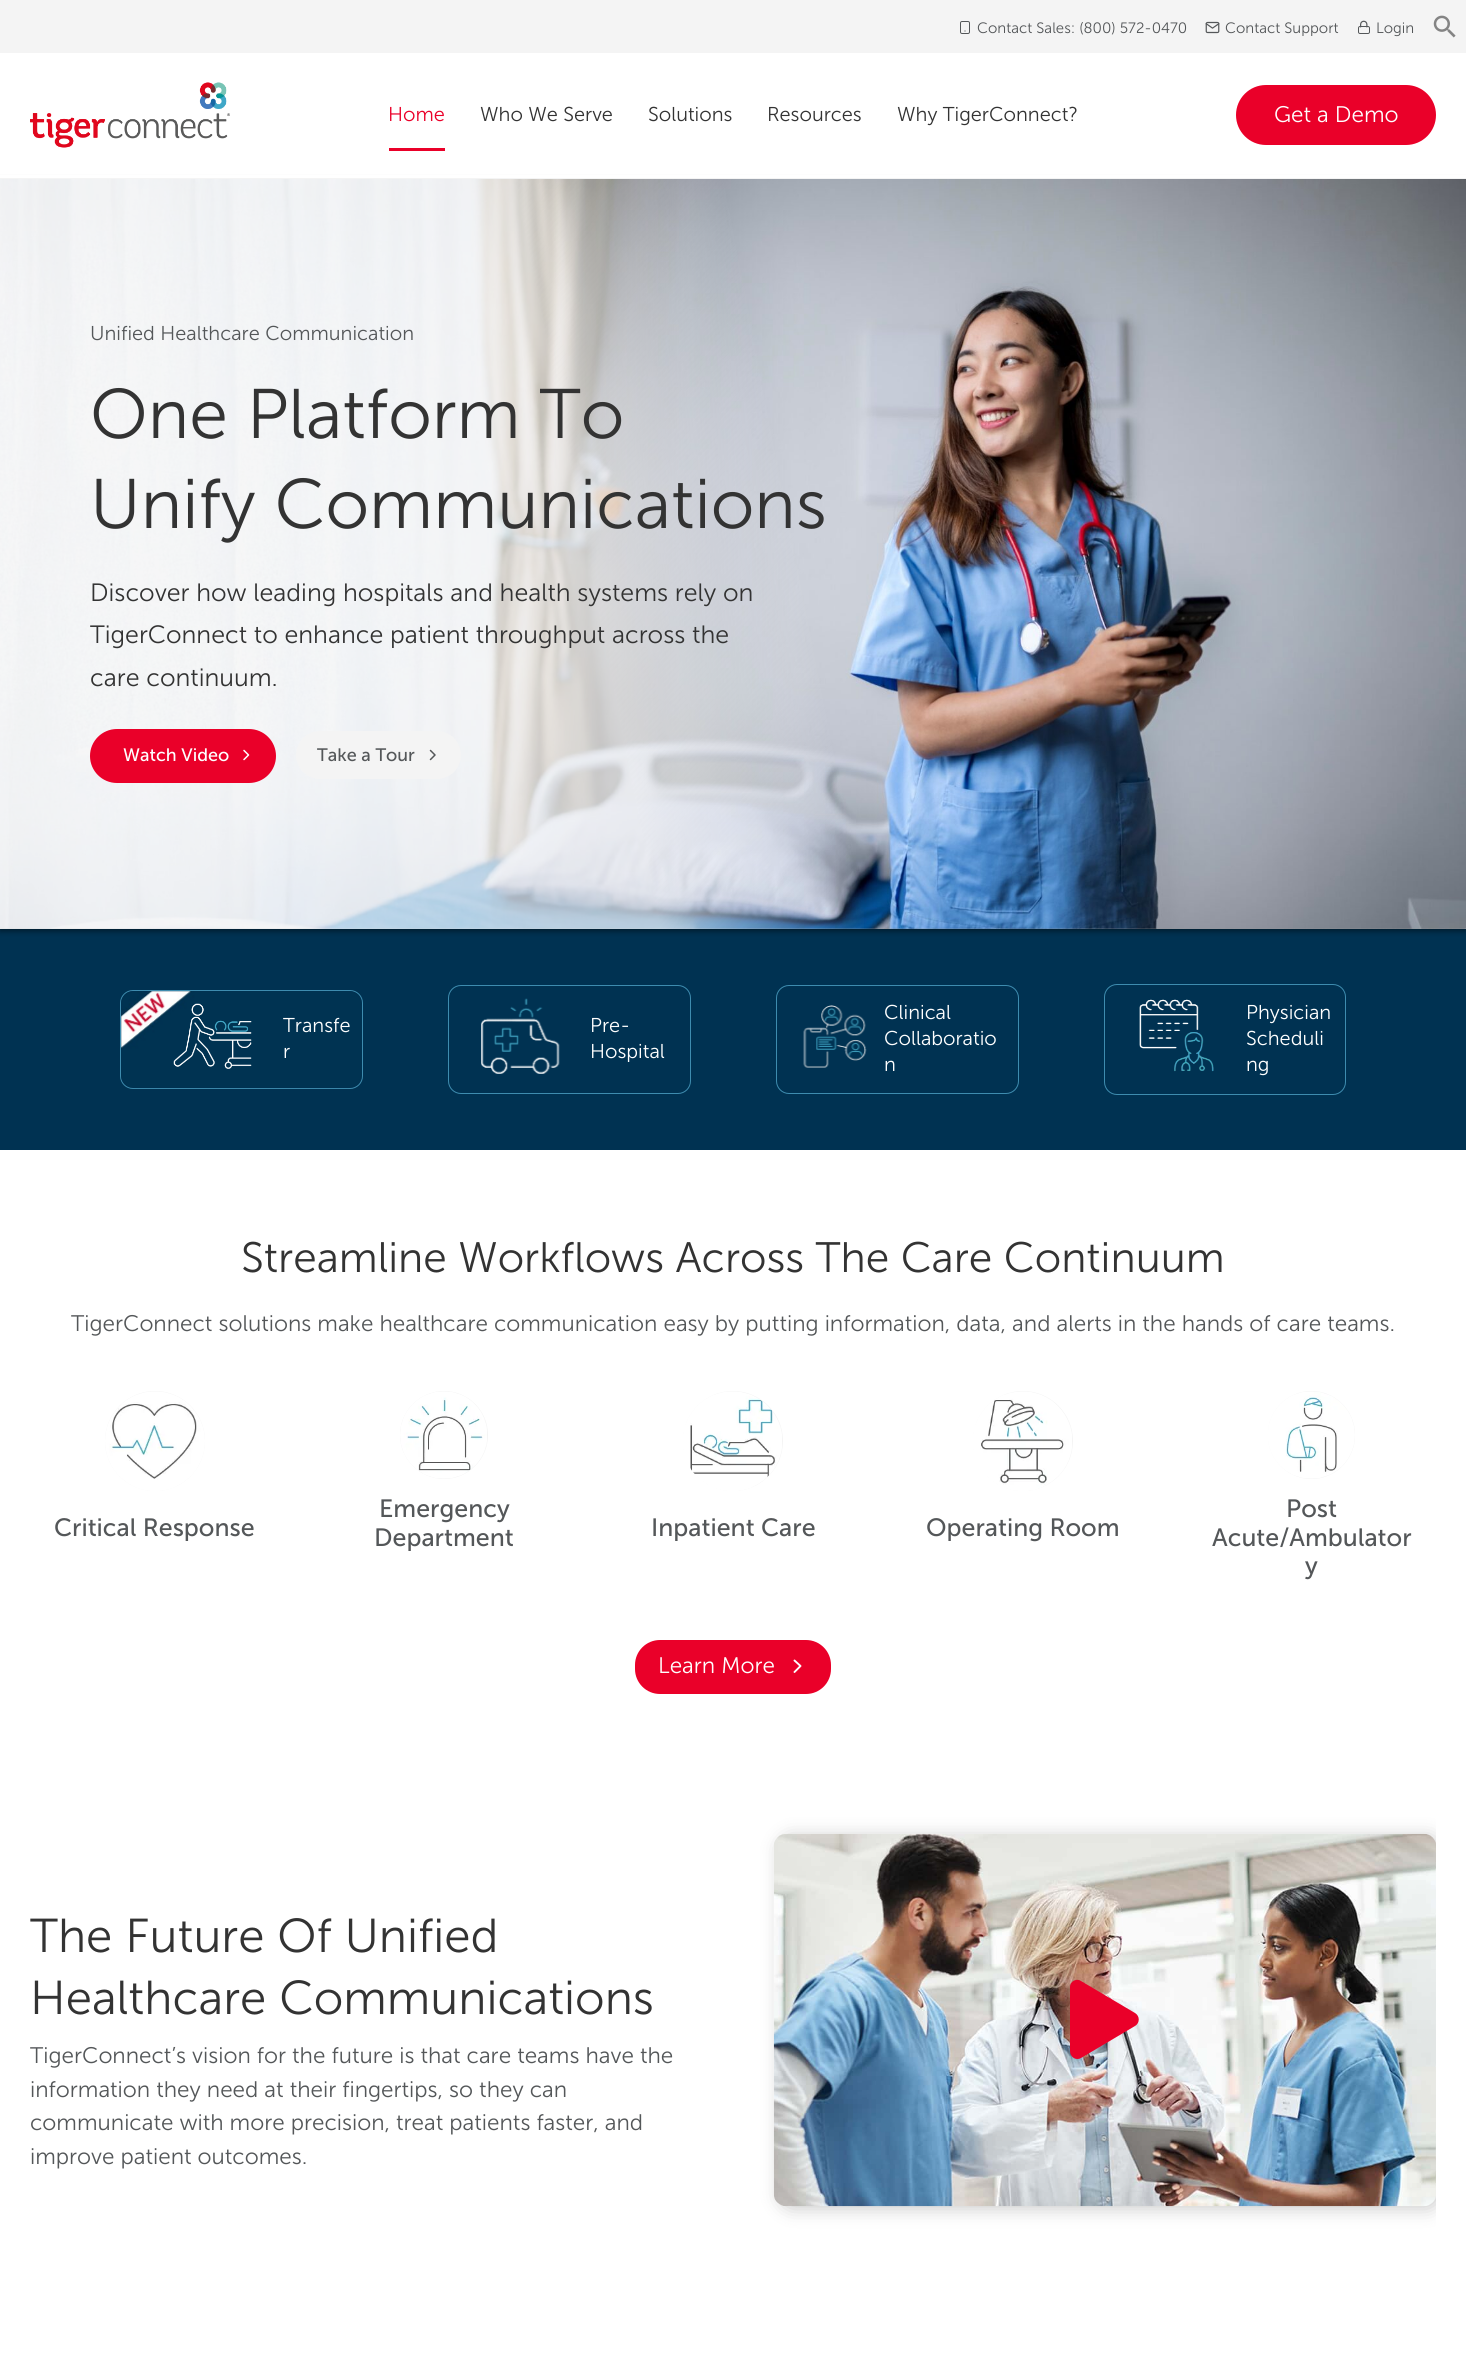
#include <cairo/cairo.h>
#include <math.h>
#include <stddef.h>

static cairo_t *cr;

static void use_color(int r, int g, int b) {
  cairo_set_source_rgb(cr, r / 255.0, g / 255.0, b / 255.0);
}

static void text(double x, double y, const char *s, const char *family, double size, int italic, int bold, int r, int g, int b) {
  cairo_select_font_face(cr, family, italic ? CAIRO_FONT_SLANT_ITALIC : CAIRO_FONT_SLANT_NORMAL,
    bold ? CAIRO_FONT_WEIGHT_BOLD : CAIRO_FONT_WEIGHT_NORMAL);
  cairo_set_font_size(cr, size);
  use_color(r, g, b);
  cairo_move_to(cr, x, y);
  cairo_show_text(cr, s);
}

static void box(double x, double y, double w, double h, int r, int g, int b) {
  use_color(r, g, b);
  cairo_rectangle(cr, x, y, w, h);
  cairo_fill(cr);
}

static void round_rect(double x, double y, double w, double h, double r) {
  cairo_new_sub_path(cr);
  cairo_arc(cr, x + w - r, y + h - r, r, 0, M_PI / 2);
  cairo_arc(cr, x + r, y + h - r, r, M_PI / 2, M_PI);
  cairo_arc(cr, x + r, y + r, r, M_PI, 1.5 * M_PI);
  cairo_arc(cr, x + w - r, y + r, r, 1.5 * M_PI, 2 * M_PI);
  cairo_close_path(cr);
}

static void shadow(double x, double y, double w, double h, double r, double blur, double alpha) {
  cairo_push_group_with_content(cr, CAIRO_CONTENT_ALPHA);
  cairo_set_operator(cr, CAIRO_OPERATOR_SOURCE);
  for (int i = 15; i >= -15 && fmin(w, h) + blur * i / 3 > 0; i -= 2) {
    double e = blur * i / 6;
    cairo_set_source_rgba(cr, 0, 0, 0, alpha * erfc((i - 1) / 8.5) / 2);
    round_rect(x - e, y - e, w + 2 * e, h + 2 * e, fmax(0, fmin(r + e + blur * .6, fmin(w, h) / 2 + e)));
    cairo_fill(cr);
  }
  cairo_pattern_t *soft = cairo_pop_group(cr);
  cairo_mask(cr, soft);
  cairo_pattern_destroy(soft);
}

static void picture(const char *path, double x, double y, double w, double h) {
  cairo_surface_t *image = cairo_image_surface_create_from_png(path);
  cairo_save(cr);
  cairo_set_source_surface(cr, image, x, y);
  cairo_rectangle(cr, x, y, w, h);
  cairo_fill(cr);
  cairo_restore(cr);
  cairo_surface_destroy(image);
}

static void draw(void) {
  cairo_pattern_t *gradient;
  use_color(255, 255, 255);
  cairo_paint(cr);
  box(0, 929, 1466, 221, 0, 50, 82);
  use_color(0, 0, 0);
  shadow(0, 181, 1466, 750, 0, 3, 0.5);
  box(0, 175, 1466, 3, 255, 255, 255);
  box(0, 0, 1466, 53, 244, 244, 244);
  round_rect(960.5, 21.5, 9, 12, 1.5);
  use_color(84, 87, 89);
  cairo_set_line_width(cr, 1);
  cairo_stroke(cr);
  cairo_new_path(cr);
  cairo_move_to(cr, 965, 31);
  cairo_line_to(cr, 965, 31);
  cairo_set_line_width(cr, 1.2);
  cairo_set_line_cap(cr, CAIRO_LINE_CAP_ROUND);
  cairo_set_line_join(cr, CAIRO_LINE_JOIN_ROUND);
  cairo_stroke(cr);
  picture("img_01.png", 1205, 21, 15, 13);
  picture("img_02.png", 1358, 20, 12, 14);
  picture("img_03.png", 1433, 15, 23, 23);
  box(0, 178, 1466, 1, 244, 244, 244);
  picture("img_04.png", 30, 82, 200, 66);
  box(389, 148, 56, 3, 234, 0, 41);
  round_rect(1236, 85, 200, 60, 30);
  cairo_fill(cr);
  picture("img_05.png", 0, 179, 1466, 750);
  gradient = cairo_pattern_create_linear(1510, 403, -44, 705);
  cairo_pattern_add_color_stop_rgba(gradient, 0.33, 0, 0, 0, 0);
  cairo_pattern_add_color_stop_rgba(gradient, 0.46, 0.957, 0.957, 0.957, 0);
  cairo_pattern_add_color_stop_rgba(gradient, 0.59, 0.957, 0.957, 0.957, 0.7);
  cairo_set_source(cr, gradient);
  cairo_pattern_destroy(gradient);
  cairo_rectangle(cr, 0, 179, 864, 750);
  cairo_fill(cr);
  use_color(234, 0, 41);
  round_rect(91.5, 730.5, 183, 51, 25.5);
  cairo_fill_preserve(cr);
  cairo_set_line_width(cr, 3);
  cairo_set_line_cap(cr, CAIRO_LINE_CAP_BUTT);
  cairo_set_line_join(cr, CAIRO_LINE_JOIN_MITER);
  cairo_stroke(cr);
  cairo_new_path(cr);
  cairo_move_to(cr, 244, 759.5);
  cairo_line_to(cr, 248.5, 755);
  cairo_line_to(cr, 244, 750.5);
  use_color(255, 255, 255);
  cairo_set_line_width(cr, 1.5);
  cairo_set_line_cap(cr, CAIRO_LINE_CAP_ROUND);
  cairo_set_line_join(cr, CAIRO_LINE_JOIN_ROUND);
  cairo_stroke(cr);
  use_color(244, 244, 244);
  round_rect(296, 731, 165, 48, 24);
  cairo_fill(cr);
  cairo_new_path(cr);
  cairo_move_to(cr, 430.5, 759.5);
  cairo_line_to(cr, 435, 755);
  cairo_line_to(cr, 430.5, 750.5);
  use_color(84, 87, 89);
  cairo_stroke(cr);
  round_rect(120.5, 990.5, 242, 98, 12.5);
  use_color(62, 140, 175);
  cairo_set_line_width(cr, 1);
  cairo_set_line_cap(cr, CAIRO_LINE_CAP_BUTT);
  cairo_set_line_join(cr, CAIRO_LINE_JOIN_MITER);
  cairo_stroke(cr);
  picture("img_06.png", 121, 991, 241, 98);
  picture("img_07.png", 173, 1003, 79, 66);
  round_rect(448.5, 985.5, 242, 108, 12.5);
  cairo_stroke(cr);
  picture("img_08.png", 481, 998, 79, 76);
  round_rect(776.5, 985.5, 242, 108, 12.5);
  cairo_stroke(cr);
  picture("img_09.png", 803, 1005, 64, 63);
  round_rect(1104.5, 984.5, 241, 110, 12.5);
  cairo_stroke(cr);
  picture("img_10.png", 1139, 999, 75, 73);
  use_color(244, 244, 244);
  cairo_arc(cr, 155, 1441, 50, 0, 2 * M_PI);
  cairo_fill(cr);
  picture("img_11.png", 105, 1391, 100, 100);
  cairo_arc(cr, 444, 1435, 44, 0, 2 * M_PI);
  cairo_fill(cr);
  picture("img_12.png", 400, 1391, 87, 88);
  cairo_arc(cr, 733, 1441, 50, 0, 2 * M_PI);
  cairo_fill(cr);
  picture("img_13.png", 683, 1391, 99, 100);
  cairo_arc(cr, 1023, 1441, 50, 0, 2 * M_PI);
  cairo_fill(cr);
  picture("img_14.png", 973, 1391, 99, 100);
  round_rect(1268, 1391, 87, 88, 43.5);
  cairo_fill(cr);
  picture("img_15.png", 1268, 1391, 87, 88);
  use_color(234, 0, 41);
  round_rect(635, 1640, 196, 54, 25);
  cairo_fill(cr);
  cairo_new_path(cr);
  cairo_move_to(cr, 794.5, 1672);
  cairo_line_to(cr, 800.5, 1666);
  cairo_line_to(cr, 794.5, 1660.5);
  use_color(255, 255, 255);
  cairo_set_line_width(cr, 1.9);
  cairo_set_line_cap(cr, CAIRO_LINE_CAP_ROUND);
  cairo_set_line_join(cr, CAIRO_LINE_JOIN_ROUND);
  cairo_stroke(cr);
  cairo_save(cr);
  round_rect(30, 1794, 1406, 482, 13);
  cairo_clip(cr);
  use_color(0, 0, 0);
  shadow(779, 1836, 662, 373, 13, 9, 0.2);
  cairo_restore(cr);
  picture("img_16.png", 773, 1833, 663, 374);
  use_color(234, 0, 41);
  cairo_new_path(cr);
  cairo_move_to(cr, 1135, 2013);
  cairo_line_to(cr, 1081, 1981);
  cairo_curve_to(cr, 1077, 1978, 1070, 1981, 1070, 1987);
  cairo_line_to(cr, 1070, 2051);
  cairo_curve_to(cr, 1070, 2057, 1076, 2061, 1081, 2058);
  cairo_line_to(cr, 1135, 2026);
  cairo_curve_to(cr, 1140, 2023, 1140, 2016, 1135, 2013);
  cairo_close_path(cr);
  cairo_fill(cr);
  text(977, 33, "Contact Sales: (800) 572-0470", "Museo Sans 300 Light", 15, 0, 0, 84, 87, 89);
  text(1225, 33, "Contact Support", "Museo Sans 300 Light", 15, 0, 0, 84, 87, 89);
  text(1376, 33, "Login", "Museo Sans 300 Light", 15, 0, 0, 84, 87, 89);
  text(388, 121, "Home", "Museo Sans 300 Light", 20, 0, 0, 234, 0, 41);
  text(480, 121, "Who We Serve", "Museo Sans 300 Light", 20, 0, 0, 51, 51, 51);
  text(648, 121, "Solutions", "Museo Sans 300 Light", 20, 0, 0, 51, 51, 51);
  text(767, 121, "Resources", "Museo Sans 300 Light", 20, 0, 0, 51, 51, 51);
  text(897, 121, "Why TigerConnect?", "Museo Sans 300 Light", 20, 0, 0, 51, 51, 51);
  text(1274, 122, "Get a Demo", "Museo Sans 300 Light", 22.5, 0, 0, 255, 255, 255);
  text(90, 340, "Unified Healthcare Communication", "Museo Sans 300 Light", 20, 0, 0, 84, 87, 89);
  text(90, 438, "One Platform To", "Museo Sans 300 Light", 70, 0, 0, 51, 51, 51);
  text(90, 528, "Unify Communications", "Museo Sans 300 Light", 70, 0, 0, 51, 51, 51);
  text(90, 601, "Discover how leading hospitals and health systems rely on", "Museo Sans 300 Light", 25, 0, 0, 51, 51, 51);
  text(90, 643, "TigerConnect to enhance patient throughput across the", "Museo Sans 300 Light", 25, 0, 0, 51, 51, 51);
  text(90, 686, "care continuum.", "Museo Sans 300 Light", 25, 0, 0, 51, 51, 51);
  text(123, 761, "Watch Video", "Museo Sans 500", 18, 0, 0, 255, 255, 255);
  text(317, 761, "Take a Tour", "Museo Sans 500", 18, 0, 0, 84, 87, 89);
  text(283, 1032, "Transfe", "Museo Sans 300 Light", 20, 0, 0, 255, 255, 255);
  text(283, 1058, "r", "Museo Sans 300 Light", 20, 0, 0, 255, 255, 255);
  text(590, 1032, "Pre-", "Museo Sans 300 Light", 20, 0, 0, 255, 255, 255);
  text(590, 1058, "Hospital", "Museo Sans 300 Light", 20, 0, 0, 255, 255, 255);
  text(884, 1019, "Clinical", "Museo Sans 300 Light", 20, 0, 0, 255, 255, 255);
  text(884, 1045, "Collaboratio", "Museo Sans 300 Light", 20, 0, 0, 255, 255, 255);
  text(884, 1071, "n", "Museo Sans 300 Light", 20, 0, 0, 255, 255, 255);
  text(1246, 1019, "Physician", "Museo Sans 300 Light", 20, 0, 0, 255, 255, 255);
  text(1246, 1045, "Scheduli", "Museo Sans 300 Light", 20, 0, 0, 255, 255, 255);
  text(1246, 1071, "ng", "Museo Sans 300 Light", 20, 0, 0, 255, 255, 255);
  text(241, 1272, "Streamline Workflows Across The Care Continuum", "Museo Sans 300 Light", 42.5, 0, 0, 51, 51, 51);
  text(71, 1331, "TigerConnect solutions make healthcare communication easy by putting information, data, and alerts in the hands of care teams.", "Museo Sans 300 Light", 22.5, 0, 0, 84, 87, 89);
  text(54, 1536, "Critical Response", "Museo Sans 500", 25, 0, 0, 84, 87, 89);
  text(379, 1517, "Emergency", "Museo Sans 500", 25, 0, 0, 84, 87, 89);
  text(374, 1546, "Department", "Museo Sans 500", 25, 0, 0, 84, 87, 89);
  text(651, 1536, "Inpatient Care", "Museo Sans 500", 25, 0, 0, 84, 87, 89);
  text(926, 1536, "Operating Room", "Museo Sans 500", 25, 0, 0, 84, 87, 89);
  text(1286, 1517, "Post", "Museo Sans 500", 25, 0, 0, 84, 87, 89);
  text(1212, 1546, "Acute/Ambulator", "Museo Sans 500", 25, 0, 0, 84, 87, 89);
  text(1305, 1574, "y", "Museo Sans 500", 25, 0, 0, 84, 87, 89);
  text(658, 1673, "Learn More", "Museo Sans 300 Light", 22.5, 0, 0, 255, 255, 255);
  text(30, 1952, "The Future Of Unified", "Museo Sans 300 Light", 47.5, 0, 0, 51, 51, 51);
  text(30, 2014, "Healthcare Communications", "Museo Sans 300 Light", 47.5, 0, 0, 51, 51, 51);
  text(30, 2063, "TigerConnect’s vision for the future is that care teams have the", "Museo Sans 300 Light", 22.5, 0, 0, 84, 87, 89);
  text(30, 2097, "information they need at their fingertips, so they can", "Museo Sans 300 Light", 22.5, 0, 0, 84, 87, 89);
  text(30, 2130, "communicate with more precision, treat patients faster, and", "Museo Sans 300 Light", 22.5, 0, 0, 84, 87, 89);
  text(30, 2164, "improve patient outcomes.", "Museo Sans 300 Light", 22.5, 0, 0, 84, 87, 89);
}

int main(void) {
  cairo_surface_t *surface = cairo_image_surface_create(CAIRO_FORMAT_RGB24, 1466, 2369);
  cr = cairo_create(surface);
  cairo_font_options_t *options = cairo_font_options_create();
  cairo_font_options_set_hint_metrics(options, CAIRO_HINT_METRICS_OFF);
  cairo_font_options_set_hint_style(options, CAIRO_HINT_STYLE_NONE);
  cairo_set_font_options(cr, options);
  cairo_set_miter_limit(cr, 4);
  draw();
  cairo_surface_write_to_png(surface, "out.png");
  cairo_font_options_destroy(options);
  cairo_destroy(cr);
  cairo_surface_destroy(surface);
  return 0;
}
